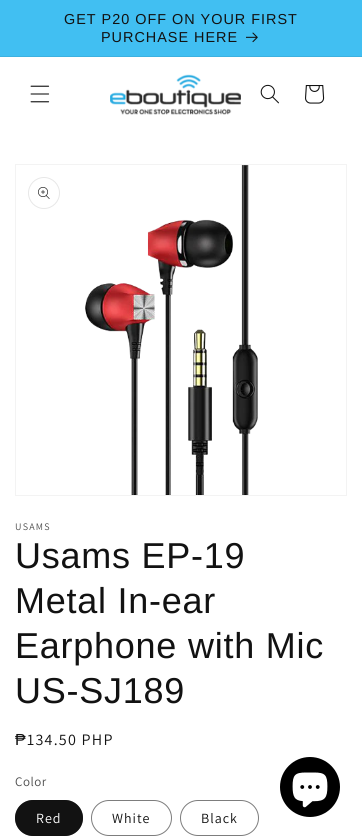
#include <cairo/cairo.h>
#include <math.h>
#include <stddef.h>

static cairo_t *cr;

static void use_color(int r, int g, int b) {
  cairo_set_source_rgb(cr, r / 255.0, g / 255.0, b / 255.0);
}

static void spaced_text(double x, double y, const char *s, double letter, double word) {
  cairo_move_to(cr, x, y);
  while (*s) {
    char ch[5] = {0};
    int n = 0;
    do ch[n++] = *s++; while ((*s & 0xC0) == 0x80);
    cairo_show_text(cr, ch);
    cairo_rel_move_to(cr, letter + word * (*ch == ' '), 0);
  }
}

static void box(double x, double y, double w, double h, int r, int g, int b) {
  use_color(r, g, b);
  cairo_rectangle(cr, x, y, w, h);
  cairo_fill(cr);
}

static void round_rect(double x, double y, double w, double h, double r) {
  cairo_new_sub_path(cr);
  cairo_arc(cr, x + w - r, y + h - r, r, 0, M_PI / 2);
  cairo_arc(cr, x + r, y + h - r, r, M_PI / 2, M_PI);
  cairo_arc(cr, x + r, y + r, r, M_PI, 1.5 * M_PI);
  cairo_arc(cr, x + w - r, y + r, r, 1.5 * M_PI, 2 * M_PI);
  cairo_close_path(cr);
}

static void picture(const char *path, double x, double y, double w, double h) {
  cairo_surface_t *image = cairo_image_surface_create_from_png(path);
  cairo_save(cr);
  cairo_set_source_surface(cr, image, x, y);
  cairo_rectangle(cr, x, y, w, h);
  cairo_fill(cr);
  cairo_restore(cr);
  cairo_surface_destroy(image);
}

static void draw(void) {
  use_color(255, 255, 255);
  cairo_paint(cr);
  box(0, 0, 362, 56, 65, 191, 242);
  box(0, 56, 362, 1, 61, 177, 224);
  picture("img_01.png", 246, 32, 12, 11);
  picture("img_02.png", 30, 85, 20, 18);
  picture("img_03.png", 110, 74, 131, 41);
  picture("img_04.png", 260, 84, 19, 20);
  picture("img_05.png", 305, 85, 20, 19);
  cairo_rectangle(cr, 15.5, 164.5, 331, 331);
  use_color(243, 243, 243);
  cairo_set_line_width(cr, 1);
  cairo_stroke(cr);
  cairo_arc(cr, 44, 193, 15.5, 0, 2 * M_PI);
  use_color(231, 231, 231);
  cairo_stroke(cr);
  picture("img_06.png", 38, 187, 12, 12);
  picture("img_07.png", 85, 165, 173, 330);
  use_color(18, 18, 18);
  round_rect(15, 800, 68, 36, 18);
  cairo_fill(cr);
  round_rect(15.5, 800.5, 67, 35, 17.5);
  cairo_set_source_rgba(cr, 0.071, 0.071, 0.071, 0.55);
  cairo_stroke(cr);
  round_rect(91.5, 800.5, 80, 35, 17.5);
  use_color(125, 125, 125);
  cairo_stroke(cr);
  round_rect(180.5, 800.5, 78, 35, 17.5);
  cairo_stroke(cr);
  use_color(0, 0, 0);
  cairo_arc(cr, 310, 787, 30, 0, 2 * M_PI);
  cairo_fill(cr);
  picture("img_08.png", 292, 772, 36, 36);
  cairo_select_font_face(cr, "Arimo", CAIRO_FONT_SLANT_NORMAL, CAIRO_FONT_WEIGHT_NORMAL);
  cairo_set_font_size(cr, 14.4);
  use_color(18, 18, 18);
  spaced_text(64, 24, "GET P20 OFF ON YOUR FIRST", 1, 0);
  spaced_text(101, 42, "PURCHASE HERE", 1, 0);
  cairo_select_font_face(cr, "Assistant", CAIRO_FONT_SLANT_NORMAL, CAIRO_FONT_WEIGHT_NORMAL);
  cairo_set_font_size(cr, 10);
  use_color(77, 77, 77);
  spaced_text(15, 530, "USAMS", 1.25, 0);
  cairo_select_font_face(cr, "Arimo", CAIRO_FONT_SLANT_NORMAL, CAIRO_FONT_WEIGHT_NORMAL);
  cairo_set_font_size(cr, 36);
  use_color(18, 18, 18);
  spaced_text(15, 568, "Usams EP-19", 0.75, 0);
  spaced_text(15, 613, "Metal In-ear", 0.75, 0);
  spaced_text(15, 658, "Earphone with Mic", 0.75, 0);
  spaced_text(15, 703, "US-SJ189", 0.75, 0);
  cairo_select_font_face(cr, "Liberation Sans", CAIRO_FONT_SLANT_NORMAL, CAIRO_FONT_WEIGHT_NORMAL);
  cairo_set_font_size(cr, 16);
  spaced_text(15, 745, "₱", 1.25, 0);
  cairo_select_font_face(cr, "Assistant", CAIRO_FONT_SLANT_NORMAL, CAIRO_FONT_WEIGHT_NORMAL);
  spaced_text(27, 745, "134.50 PHP", 1.25, 0);
  cairo_set_font_size(cr, 13);
  use_color(77, 77, 77);
  spaced_text(15, 786, "Color", 0.5, 0);
  cairo_set_font_size(cr, 14);
  use_color(255, 255, 255);
  spaced_text(36, 823, "Red", 1, 0);
  use_color(18, 18, 18);
  spaced_text(112, 823, "White", 1, 0);
  spaced_text(201, 823, "Black", 1, 0);
}

int main(void) {
  cairo_surface_t *surface = cairo_image_surface_create(CAIRO_FORMAT_RGB24, 362, 838);
  cr = cairo_create(surface);
  cairo_font_options_t *options = cairo_font_options_create();
  cairo_font_options_set_hint_metrics(options, CAIRO_HINT_METRICS_OFF);
  cairo_font_options_set_hint_style(options, CAIRO_HINT_STYLE_NONE);
  cairo_set_font_options(cr, options);
  cairo_set_miter_limit(cr, 4);
  draw();
  cairo_surface_write_to_png(surface, "out.png");
  cairo_font_options_destroy(options);
  cairo_destroy(cr);
  cairo_surface_destroy(surface);
  return 0;
}
